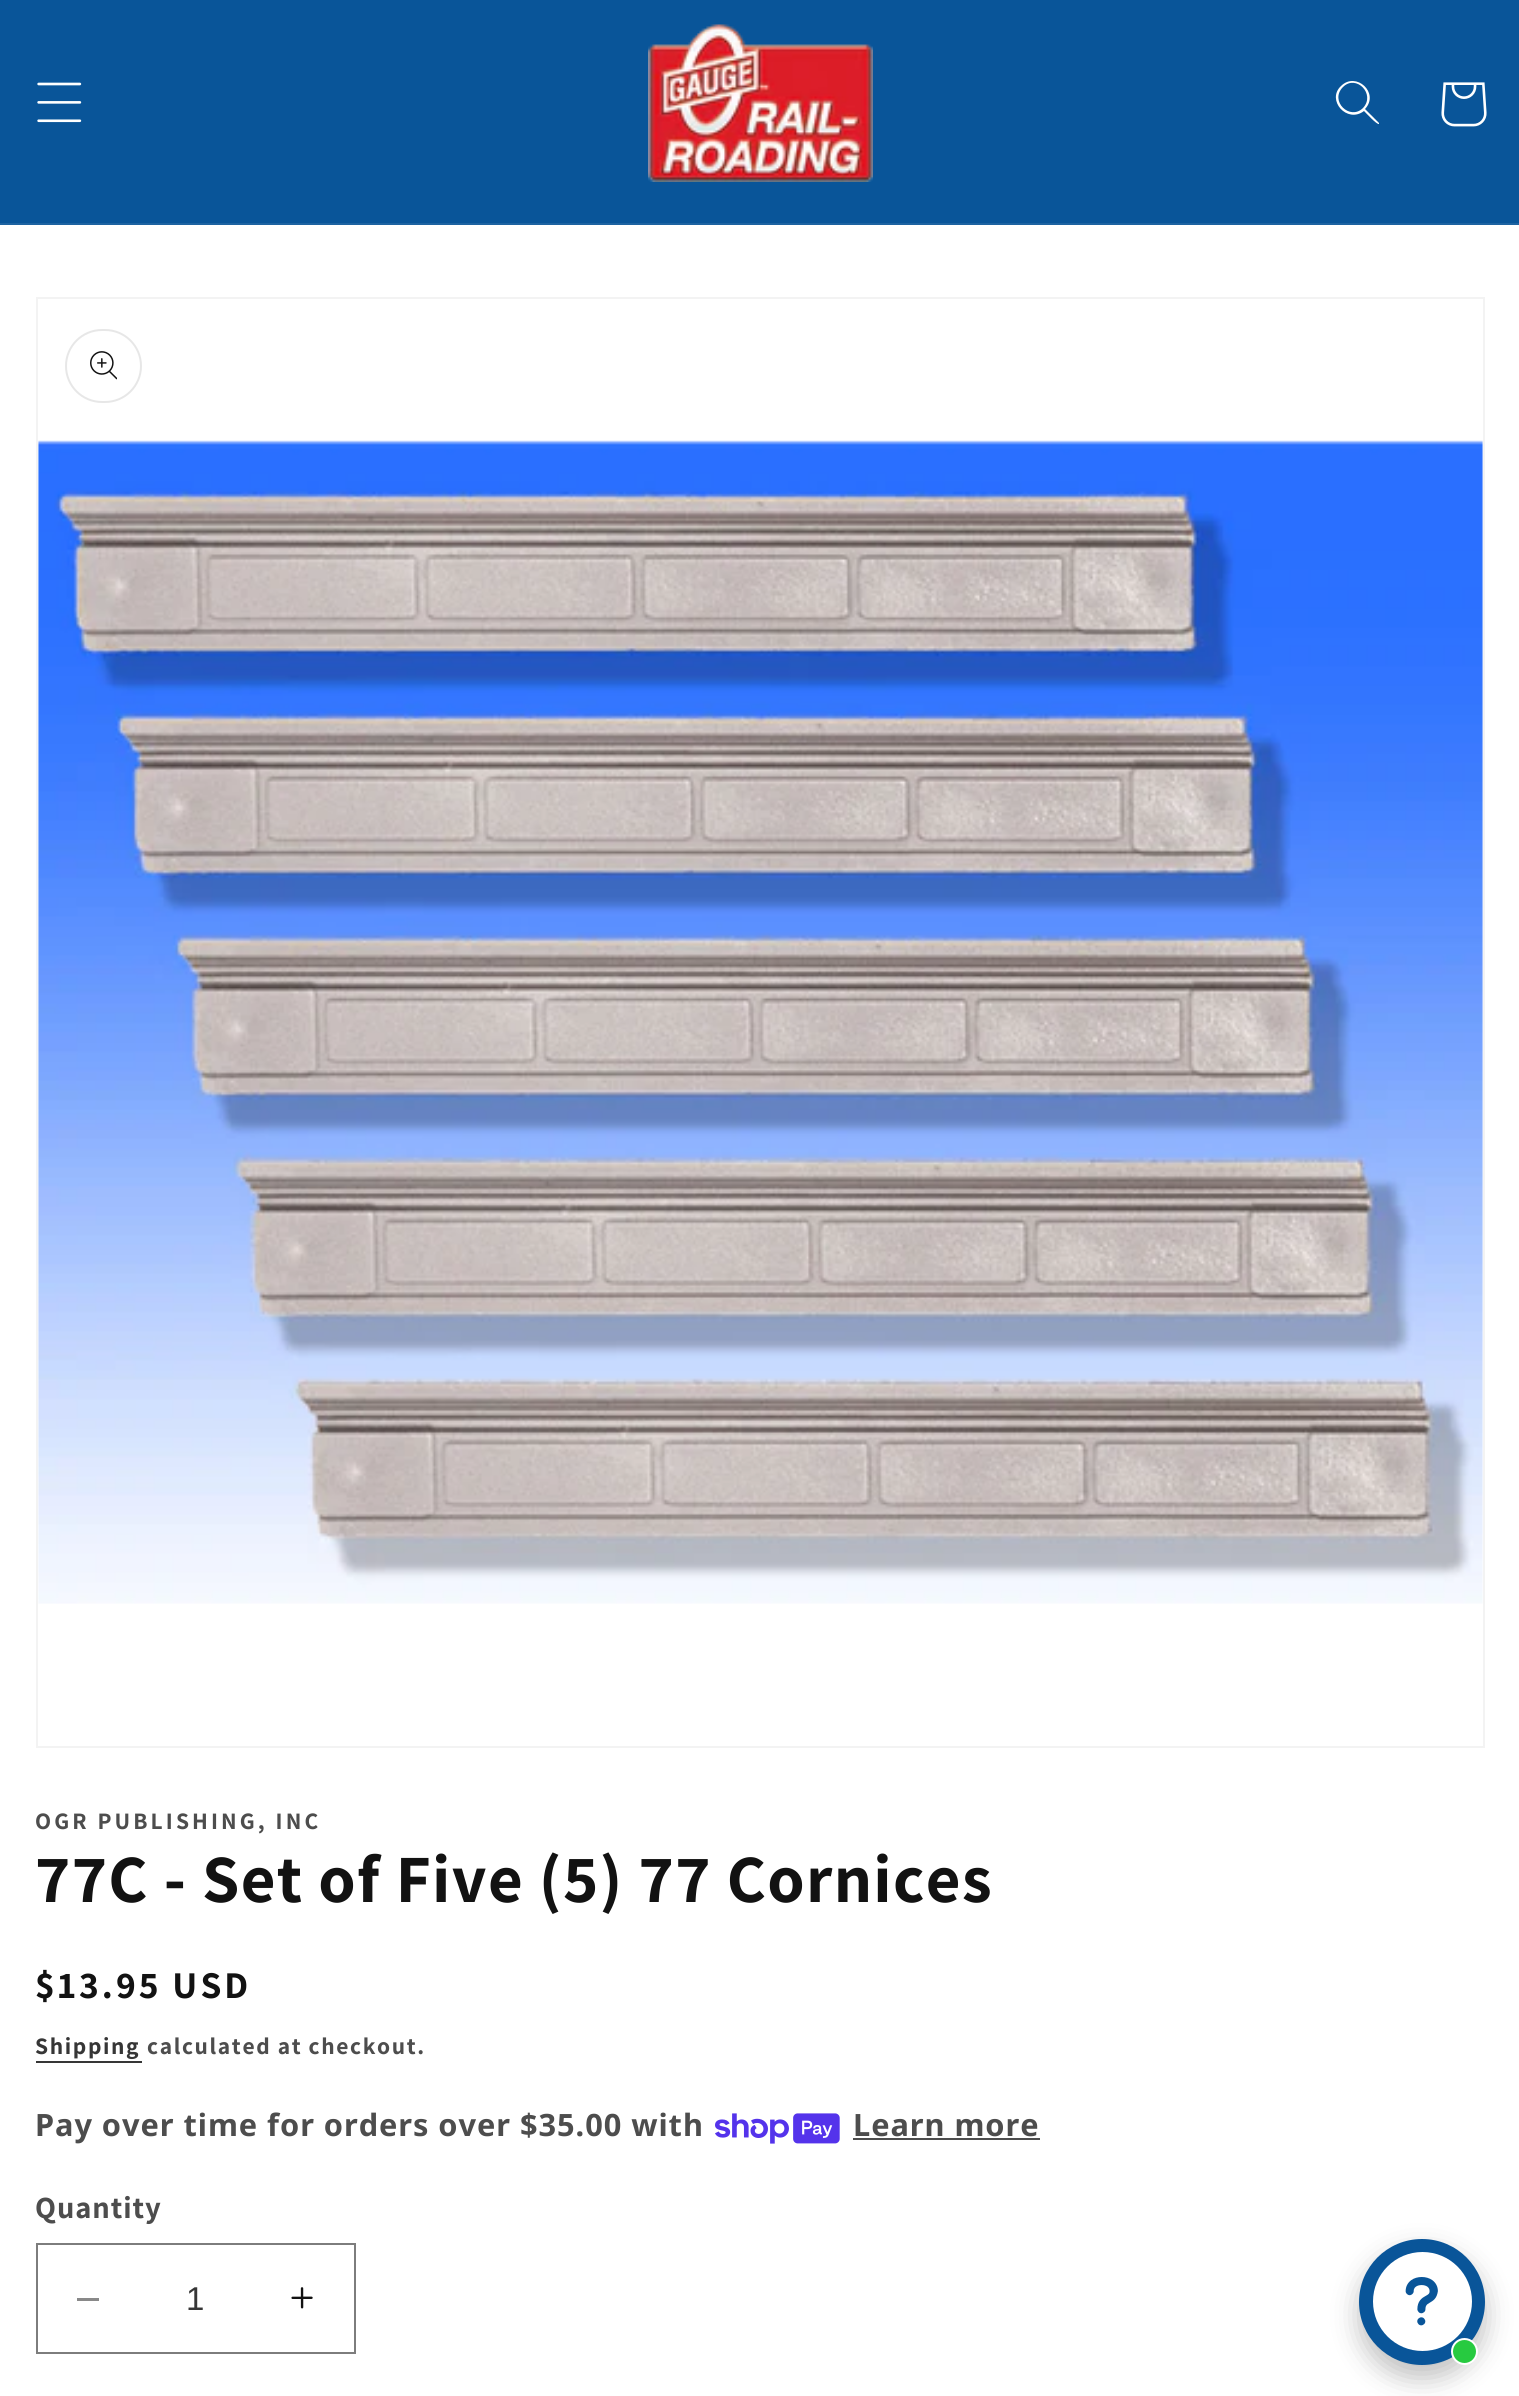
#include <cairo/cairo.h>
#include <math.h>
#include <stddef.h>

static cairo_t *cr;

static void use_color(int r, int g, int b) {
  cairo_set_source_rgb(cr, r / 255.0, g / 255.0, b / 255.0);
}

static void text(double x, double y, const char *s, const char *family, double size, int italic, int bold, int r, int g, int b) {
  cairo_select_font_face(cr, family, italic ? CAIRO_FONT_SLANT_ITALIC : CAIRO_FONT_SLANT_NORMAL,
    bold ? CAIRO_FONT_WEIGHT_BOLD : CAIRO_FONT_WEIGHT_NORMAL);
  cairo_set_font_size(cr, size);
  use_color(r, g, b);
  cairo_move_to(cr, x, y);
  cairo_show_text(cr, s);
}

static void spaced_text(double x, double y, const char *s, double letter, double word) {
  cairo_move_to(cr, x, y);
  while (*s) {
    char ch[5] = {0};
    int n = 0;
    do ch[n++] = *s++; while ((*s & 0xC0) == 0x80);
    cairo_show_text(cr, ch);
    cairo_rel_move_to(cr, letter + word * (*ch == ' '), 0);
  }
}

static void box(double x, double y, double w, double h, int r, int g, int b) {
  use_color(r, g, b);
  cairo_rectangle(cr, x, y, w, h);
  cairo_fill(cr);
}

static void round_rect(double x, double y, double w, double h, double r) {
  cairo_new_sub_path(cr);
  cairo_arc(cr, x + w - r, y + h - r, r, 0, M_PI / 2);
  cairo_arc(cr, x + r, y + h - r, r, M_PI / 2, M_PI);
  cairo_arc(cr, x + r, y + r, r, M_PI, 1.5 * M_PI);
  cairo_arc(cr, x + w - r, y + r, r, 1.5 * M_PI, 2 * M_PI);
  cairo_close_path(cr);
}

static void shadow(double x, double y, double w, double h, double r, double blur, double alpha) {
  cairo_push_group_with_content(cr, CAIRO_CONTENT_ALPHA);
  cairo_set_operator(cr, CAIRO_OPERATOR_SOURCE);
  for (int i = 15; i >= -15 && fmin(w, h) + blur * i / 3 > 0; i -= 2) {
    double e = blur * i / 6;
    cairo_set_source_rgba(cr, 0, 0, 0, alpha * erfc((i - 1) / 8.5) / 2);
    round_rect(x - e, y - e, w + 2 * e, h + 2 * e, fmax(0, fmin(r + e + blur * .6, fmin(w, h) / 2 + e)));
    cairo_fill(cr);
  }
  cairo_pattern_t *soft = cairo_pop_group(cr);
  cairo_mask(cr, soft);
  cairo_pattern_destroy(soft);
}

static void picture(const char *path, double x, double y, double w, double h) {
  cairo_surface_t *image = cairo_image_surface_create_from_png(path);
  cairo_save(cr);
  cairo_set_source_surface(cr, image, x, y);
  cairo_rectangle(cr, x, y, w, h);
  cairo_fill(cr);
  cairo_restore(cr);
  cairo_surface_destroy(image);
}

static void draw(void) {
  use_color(255, 255, 255);
  cairo_paint(cr);
  box(0, 0, 1519, 223, 9, 85, 153);
  box(0, 223, 1519, 2, 29, 99, 161);
  picture("img_01.png", 37, 82, 45, 41);
  picture("img_02.png", 648, 24, 225, 158);
  use_color(255, 255, 255);
  cairo_set_fill_rule(cr, CAIRO_FILL_RULE_EVEN_ODD);
  cairo_new_path(cr);
  cairo_move_to(cr, 1363, 108);
  cairo_curve_to(cr, 1350, 121, 1329, 101, 1343, 87);
  cairo_curve_to(cr, 1356, 74, 1376, 94, 1363, 108);
  cairo_close_path(cr);
  cairo_move_to(cr, 1364, 111);
  cairo_curve_to(cr, 1347, 124, 1326, 100, 1341, 86);
  cairo_curve_to(cr, 1356, 71, 1380, 93, 1365, 109);
  cairo_line_to(cr, 1379, 123);
  cairo_line_to(cr, 1379, 124);
  cairo_curve_to(cr, 1377, 125, 1366, 113, 1364, 111);
  cairo_close_path(cr);
  cairo_fill(cr);
  picture("img_03.png", 1441, 82, 46, 45);
  cairo_rectangle(cr, 37, 298, 1447, 1449);
  use_color(243, 243, 243);
  cairo_stroke(cr);
  round_rect(66, 330, 75, 72, 36);
  use_color(231, 231, 231);
  cairo_stroke(cr);
  picture("img_04.png", 90, 351, 27, 29);
  picture("img_05.png", 38, 440, 1445, 1164);
  box(36, 2061, 106, 2, 54, 54, 54);
  picture("img_06.png", 715, 2113, 125, 31);
  box(853, 2138, 187, 2, 77, 77, 77);
  box(77, 2298, 22, 3, 137, 137, 137);
  picture("img_07.png", 291, 2287, 22, 22);
  cairo_rectangle(cr, 37, 2244, 318, 109);
  use_color(125, 125, 125);
  cairo_stroke(cr);
  use_color(0, 0, 0);
  shadow(1359, 2252, 126, 126, 63, 13.5, 0.25);
  use_color(9, 85, 153);
  cairo_arc(cr, 1422, 2302, 63, 0, 2 * M_PI);
  cairo_fill(cr);
  use_color(255, 255, 255);
  cairo_arc(cr, 1422.5, 2301.5, 49.5, 0, 2 * M_PI);
  cairo_fill(cr);
  picture("img_08.png", 1405, 2277, 33, 49);
  use_color(39, 202, 64);
  cairo_arc(cr, 1464.5, 2351.5, 12.5, 0, 2 * M_PI);
  cairo_fill_preserve(cr);
  use_color(255, 255, 255);
  cairo_stroke(cr);
  cairo_select_font_face(cr, "Assistant", CAIRO_FONT_SLANT_NORMAL, CAIRO_FONT_WEIGHT_BOLD);
  cairo_set_font_size(cr, 23.6);
  use_color(77, 77, 77);
  spaced_text(35, 1829, "OGR PUBLISHING, INC", 3.1, 0);
  cairo_set_font_size(cr, 67.5);
  use_color(18, 18, 18);
  spaced_text(35, 1902, "77C - Set of Five (5) 77 Cornices", 1.35, 0);
  cairo_set_font_size(cr, 37.75);
  spaced_text(35, 1998, "$13.95 USD", 3.1, 0);
  cairo_set_font_size(cr, 23.6);
  use_color(54, 54, 54);
  spaced_text(35, 2054, "Shipping", 1.65, 0);
  use_color(77, 77, 77);
  spaced_text(147, 2054, "calculated at checkout.", 1.65, 0);
  cairo_select_font_face(cr, "Noto Sans", CAIRO_FONT_SLANT_NORMAL, CAIRO_FONT_WEIGHT_BOLD);
  cairo_set_font_size(cr, 30.75);
  spaced_text(35, 2136, "Pay over time for orders over $35.00 with", 0.95, 0);
  spaced_text(853, 2136, "Learn more", 0.95, 0);
  cairo_select_font_face(cr, "Assistant", CAIRO_FONT_SLANT_NORMAL, CAIRO_FONT_WEIGHT_BOLD);
  spaced_text(35, 2218, "Quantity", 0.95, 0);
  text(186, 2310, "1", "Liberation Sans", 33, 0, 0, 54, 54, 54);
}

int main(void) {
  cairo_surface_t *surface = cairo_image_surface_create(CAIRO_FORMAT_RGB24, 1519, 2396);
  cr = cairo_create(surface);
  cairo_font_options_t *options = cairo_font_options_create();
  cairo_font_options_set_hint_metrics(options, CAIRO_HINT_METRICS_OFF);
  cairo_font_options_set_hint_style(options, CAIRO_HINT_STYLE_NONE);
  cairo_set_font_options(cr, options);
  cairo_set_miter_limit(cr, 4);
  draw();
  cairo_surface_write_to_png(surface, "out.png");
  cairo_font_options_destroy(options);
  cairo_destroy(cr);
  cairo_surface_destroy(surface);
  return 0;
}
